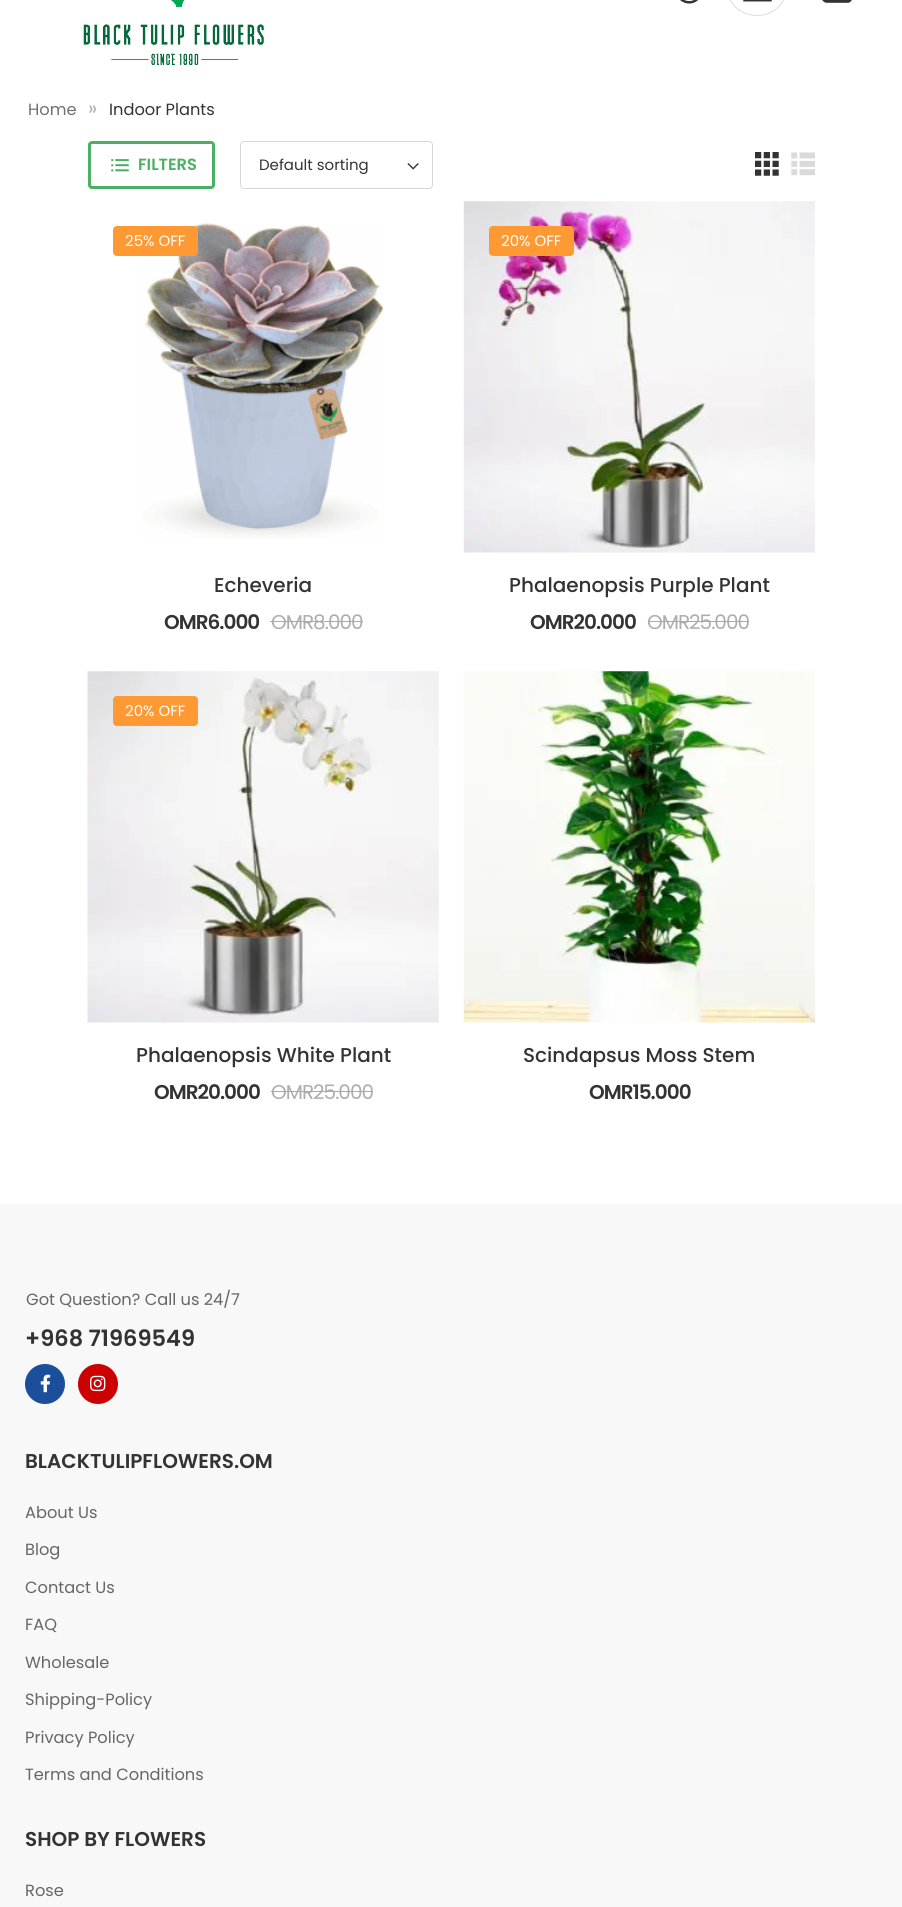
#include <cairo/cairo.h>
#include <math.h>
#include <stddef.h>

static cairo_t *cr;

static void use_color(int r, int g, int b) {
  cairo_set_source_rgb(cr, r / 255.0, g / 255.0, b / 255.0);
}

static void text(double x, double y, const char *s, const char *family, double size, int italic, int bold, int r, int g, int b) {
  cairo_select_font_face(cr, family, italic ? CAIRO_FONT_SLANT_ITALIC : CAIRO_FONT_SLANT_NORMAL,
    bold ? CAIRO_FONT_WEIGHT_BOLD : CAIRO_FONT_WEIGHT_NORMAL);
  cairo_set_font_size(cr, size);
  use_color(r, g, b);
  cairo_move_to(cr, x, y);
  cairo_show_text(cr, s);
}

static void spaced_text(double x, double y, const char *s, double letter, double word) {
  cairo_move_to(cr, x, y);
  while (*s) {
    char ch[5] = {0};
    int n = 0;
    do ch[n++] = *s++; while ((*s & 0xC0) == 0x80);
    cairo_show_text(cr, ch);
    cairo_rel_move_to(cr, letter + word * (*ch == ' '), 0);
  }
}

static void box(double x, double y, double w, double h, int r, int g, int b) {
  use_color(r, g, b);
  cairo_rectangle(cr, x, y, w, h);
  cairo_fill(cr);
}

static void round_rect(double x, double y, double w, double h, double r) {
  cairo_new_sub_path(cr);
  cairo_arc(cr, x + w - r, y + h - r, r, 0, M_PI / 2);
  cairo_arc(cr, x + r, y + h - r, r, M_PI / 2, M_PI);
  cairo_arc(cr, x + r, y + r, r, M_PI, 1.5 * M_PI);
  cairo_arc(cr, x + w - r, y + r, r, 1.5 * M_PI, 2 * M_PI);
  cairo_close_path(cr);
}

static void picture(const char *path, double x, double y, double w, double h) {
  cairo_surface_t *image = cairo_image_surface_create_from_png(path);
  cairo_save(cr);
  cairo_set_source_surface(cr, image, x, y);
  cairo_rectangle(cr, x, y, w, h);
  cairo_fill(cr);
  cairo_restore(cr);
  cairo_surface_destroy(image);
}

static void draw(void) {
  use_color(255, 255, 255);
  cairo_paint(cr);
  round_rect(726.5, -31.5, 61, 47, 30);
  use_color(221, 221, 221);
  cairo_set_line_width(cr, 1);
  cairo_stroke(cr);
  picture("img_01.png", 743, 0, 29, 2);
  picture("img_02.png", 83, 0, 181, 65);
  picture("img_03.png", 680, 0, 18, 4);
  picture("img_04.png", 822, 0, 30, 3);
  round_rect(89.5, 142.5, 124, 45, 2.5);
  use_color(75, 176, 100);
  cairo_set_line_width(cr, 3);
  cairo_stroke(cr);
  picture("img_05.png", 111, 159, 18, 13);
  picture("img_06.png", 407, 163, 12, 7);
  round_rect(240.5, 141.5, 192, 47, 3.5);
  use_color(215, 215, 215);
  cairo_set_line_width(cr, 1);
  cairo_stroke(cr);
  picture("img_07.png", 755, 152, 24, 24);
  picture("img_08.png", 791, 152, 24, 24);
  picture("img_09.png", 142, 223, 242, 316);
  use_color(255, 153, 51);
  round_rect(113, 226, 85, 30, 4);
  cairo_fill(cr);
  picture("img_10.png", 463, 201, 352, 352);
  round_rect(489, 226, 85, 30, 4);
  cairo_fill(cr);
  picture("img_11.png", 87, 671, 352, 352);
  round_rect(113, 696, 85, 30, 4);
  cairo_fill(cr);
  picture("img_12.png", 463, 671, 352, 352);
  box(0, 1204, 902, 703, 248, 248, 248);
  use_color(27, 79, 155);
  cairo_arc(cr, 45, 1384, 20, 0, 2 * M_PI);
  cairo_fill(cr);
  picture("img_13.png", 40, 1374, 11, 19);
  use_color(204, 0, 1);
  cairo_arc(cr, 98, 1384, 20, 0, 2 * M_PI);
  cairo_fill(cr);
  picture("img_14.png", 90, 1375, 16, 17);
  text(28, 115, "Home", "Poppins", 16.25, 0, 0, 112, 112, 112);
  text(88, 115, "»", "Poppins", 20, 0, 0, 173, 173, 173);
  text(109, 115, "Indoor Plants", "Poppins", 16.25, 0, 0, 51, 51, 51);
  text(138, 170, "FILTERS", "Poppins SemiBold", 16.25, 0, 0, 75, 176, 100);
  text(259, 170, "Default sorting", "Poppins", 15, 0, 0, 51, 51, 51);
  text(125, 246, "25% OFF", "Poppins", 15, 0, 0, 255, 255, 255);
  text(214, 592, "Echeveria", "Poppins Medium", 20, 0, 0, 51, 51, 51);
  cairo_select_font_face(cr, "Poppins SemiBold", CAIRO_FONT_SLANT_NORMAL, CAIRO_FONT_WEIGHT_NORMAL);
  spaced_text(164, 629, "OMR6.000", -1, 0);
  cairo_select_font_face(cr, "Poppins", CAIRO_FONT_SLANT_NORMAL, CAIRO_FONT_WEIGHT_NORMAL);
  use_color(173, 173, 173);
  spaced_text(271, 629, "OMR8.000", -1, 0);
  box(270, 621, 93, 1, 170, 170, 170);
  text(501, 246, "20% OFF", "Poppins", 15, 0, 0, 255, 255, 255);
  text(509, 592, "Phalaenopsis Purple Plant", "Poppins Medium", 20, 0, 0, 51, 51, 51);
  cairo_select_font_face(cr, "Poppins SemiBold", CAIRO_FONT_SLANT_NORMAL, CAIRO_FONT_WEIGHT_NORMAL);
  spaced_text(530, 629, "OMR20.000", -1, 0);
  cairo_select_font_face(cr, "Poppins", CAIRO_FONT_SLANT_NORMAL, CAIRO_FONT_WEIGHT_NORMAL);
  use_color(173, 173, 173);
  spaced_text(647, 629, "OMR25.000", -1, 0);
  box(648, 621, 101, 1, 170, 170, 170);
  text(125, 716, "20% OFF", "Poppins", 15, 0, 0, 255, 255, 255);
  text(136, 1062, "Phalaenopsis White Plant", "Poppins Medium", 20, 0, 0, 51, 51, 51);
  cairo_select_font_face(cr, "Poppins SemiBold", CAIRO_FONT_SLANT_NORMAL, CAIRO_FONT_WEIGHT_NORMAL);
  spaced_text(154, 1099, "OMR20.000", -1, 0);
  cairo_select_font_face(cr, "Poppins", CAIRO_FONT_SLANT_NORMAL, CAIRO_FONT_WEIGHT_NORMAL);
  use_color(173, 173, 173);
  spaced_text(271, 1099, "OMR25.000", -1, 0);
  box(271, 1091, 102, 1, 170, 170, 170);
  text(523, 1062, "Scindapsus Moss Stem", "Poppins Medium", 20, 0, 0, 51, 51, 51);
  cairo_select_font_face(cr, "Poppins SemiBold", CAIRO_FONT_SLANT_NORMAL, CAIRO_FONT_WEIGHT_NORMAL);
  spaced_text(589, 1099, "OMR15.000", -1, 0);
  text(26, 1305, "Got Question? Call us 24/7", "Poppins", 16.25, 0, 0, 102, 102, 102);
  text(25, 1346, "+968 71969549", "Poppins SemiBold", 22.5, 0, 0, 51, 51, 51);
  text(25, 1468, "BLACKTULIPFLOWERS.OM", "Poppins SemiBold", 20, 0, 0, 51, 51, 51);
  text(25, 1518, "About Us", "Poppins", 16.25, 0, 0, 102, 102, 102);
  text(25, 1555, "Blog", "Poppins", 16.25, 0, 0, 102, 102, 102);
  text(25, 1593, "Contact Us", "Poppins", 16.25, 0, 0, 102, 102, 102);
  text(25, 1630, "FAQ", "Poppins", 16.25, 0, 0, 102, 102, 102);
  text(25, 1668, "Wholesale", "Poppins", 16.25, 0, 0, 102, 102, 102);
  text(25, 1705, "Shipping-Policy", "Poppins", 16.25, 0, 0, 102, 102, 102);
  text(25, 1743, "Privacy Policy", "Poppins", 16.25, 0, 0, 102, 102, 102);
  text(25, 1780, "Terms and Conditions", "Poppins", 16.25, 0, 0, 102, 102, 102);
  text(25, 1846, "SHOP BY FLOWERS", "Poppins SemiBold", 20, 0, 0, 51, 51, 51);
  text(25, 1896, "Rose", "Poppins", 16.25, 0, 0, 102, 102, 102);
}

int main(void) {
  cairo_surface_t *surface = cairo_image_surface_create(CAIRO_FORMAT_RGB24, 902, 1907);
  cr = cairo_create(surface);
  cairo_font_options_t *options = cairo_font_options_create();
  cairo_font_options_set_hint_metrics(options, CAIRO_HINT_METRICS_OFF);
  cairo_font_options_set_hint_style(options, CAIRO_HINT_STYLE_NONE);
  cairo_set_font_options(cr, options);
  cairo_set_miter_limit(cr, 4);
  draw();
  cairo_surface_write_to_png(surface, "out.png");
  cairo_font_options_destroy(options);
  cairo_destroy(cr);
  cairo_surface_destroy(surface);
  return 0;
}
